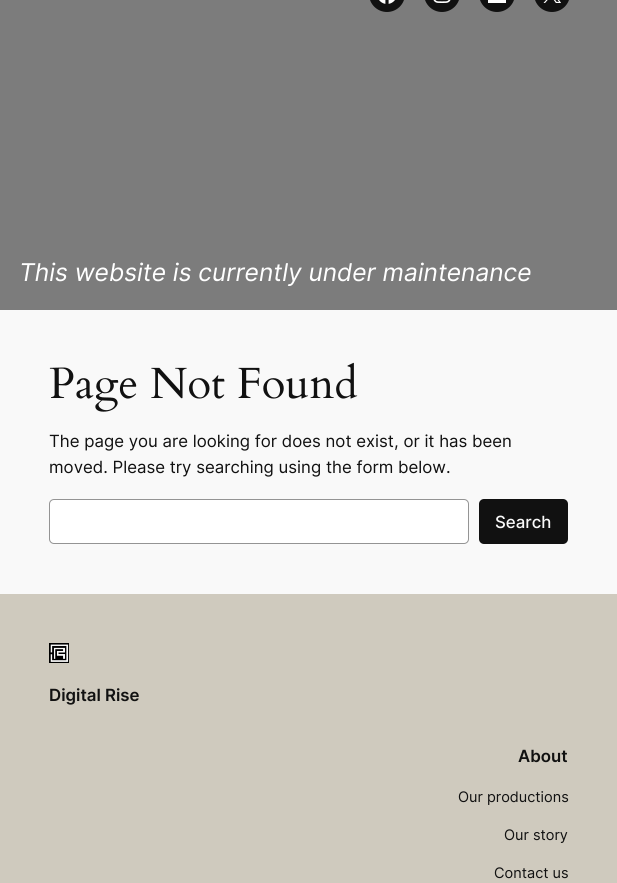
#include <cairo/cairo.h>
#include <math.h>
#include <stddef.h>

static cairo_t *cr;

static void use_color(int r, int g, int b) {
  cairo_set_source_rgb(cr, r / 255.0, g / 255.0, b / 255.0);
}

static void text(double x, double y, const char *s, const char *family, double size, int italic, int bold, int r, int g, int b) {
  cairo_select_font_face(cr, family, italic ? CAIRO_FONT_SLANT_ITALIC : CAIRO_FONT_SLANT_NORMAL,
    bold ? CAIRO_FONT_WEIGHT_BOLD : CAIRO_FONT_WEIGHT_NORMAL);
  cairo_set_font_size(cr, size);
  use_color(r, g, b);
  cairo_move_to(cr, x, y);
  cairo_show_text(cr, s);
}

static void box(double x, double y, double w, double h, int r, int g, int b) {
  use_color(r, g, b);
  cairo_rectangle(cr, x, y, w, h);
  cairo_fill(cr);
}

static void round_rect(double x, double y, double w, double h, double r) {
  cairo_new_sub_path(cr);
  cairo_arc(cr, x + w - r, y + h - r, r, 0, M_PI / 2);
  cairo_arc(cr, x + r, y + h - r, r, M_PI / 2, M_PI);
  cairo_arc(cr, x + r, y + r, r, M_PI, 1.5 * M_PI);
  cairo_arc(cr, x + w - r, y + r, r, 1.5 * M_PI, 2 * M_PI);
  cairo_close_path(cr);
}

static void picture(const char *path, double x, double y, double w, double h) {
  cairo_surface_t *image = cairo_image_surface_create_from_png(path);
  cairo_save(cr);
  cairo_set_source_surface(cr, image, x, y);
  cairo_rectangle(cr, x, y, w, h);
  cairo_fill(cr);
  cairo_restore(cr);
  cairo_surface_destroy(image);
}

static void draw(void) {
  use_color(249, 249, 249);
  cairo_paint(cr);
  box(0, 0, 617, 310, 124, 124, 124);
  use_color(17, 17, 17);
  round_rect(369, -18, 36, 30, 18);
  cairo_fill(cr);
  picture("img_01.png", 379, 0, 16, 4);
  round_rect(424, -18, 36, 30, 18);
  cairo_fill(cr);
  picture("img_02.png", 433, 0, 18, 3);
  round_rect(479, -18, 36, 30, 18);
  cairo_fill(cr);
  box(488, 0, 18, 3, 255, 255, 255);
  use_color(17, 17, 17);
  round_rect(534, -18, 36, 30, 18);
  cairo_fill(cr);
  picture("img_03.png", 543, 0, 18, 3);
  picture("img_04.png", 49, 362, 309, 50);
  use_color(255, 255, 255);
  round_rect(49.5, 499.5, 419, 44, 4.5);
  cairo_fill_preserve(cr);
  use_color(148, 148, 148);
  cairo_set_line_width(cr, 1);
  cairo_stroke(cr);
  use_color(17, 17, 17);
  round_rect(479, 499, 89, 45, 5);
  cairo_fill(cr);
  box(0, 594, 617, 289, 207, 202, 190);
  picture("img_05.png", 49, 643, 20, 20);
  text(19, 281, "This website is currently under maintenance", "Inter", 24.5, 1, 0, 255, 255, 255);
  text(49, 447, "The page you are looking for does not exist, or it has been", "Inter", 16.8, 0, 0, 17, 17, 17);
  text(49, 473, "moved. Please try searching using the form below.", "Inter", 16.8, 0, 0, 17, 17, 17);
  text(495, 528, "Search", "Inter Medium", 16.8, 0, 0, 249, 249, 249);
  text(49, 701, "Digital Rise", "Inter SemiBold", 16.8, 0, 0, 17, 17, 17);
  text(518, 762, "About", "Inter SemiBold", 16.8, 0, 0, 17, 17, 17);
  text(458, 802, "Our productions", "Inter", 14.5, 0, 0, 17, 17, 17);
  text(504, 840, "Our story", "Inter", 14.5, 0, 0, 17, 17, 17);
  text(494, 878, "Contact us", "Inter", 14.5, 0, 0, 17, 17, 17);
}

int main(void) {
  cairo_surface_t *surface = cairo_image_surface_create(CAIRO_FORMAT_RGB24, 617, 883);
  cr = cairo_create(surface);
  cairo_font_options_t *options = cairo_font_options_create();
  cairo_font_options_set_hint_metrics(options, CAIRO_HINT_METRICS_OFF);
  cairo_font_options_set_hint_style(options, CAIRO_HINT_STYLE_NONE);
  cairo_set_font_options(cr, options);
  cairo_set_miter_limit(cr, 4);
  draw();
  cairo_surface_write_to_png(surface, "out.png");
  cairo_font_options_destroy(options);
  cairo_destroy(cr);
  cairo_surface_destroy(surface);
  return 0;
}
